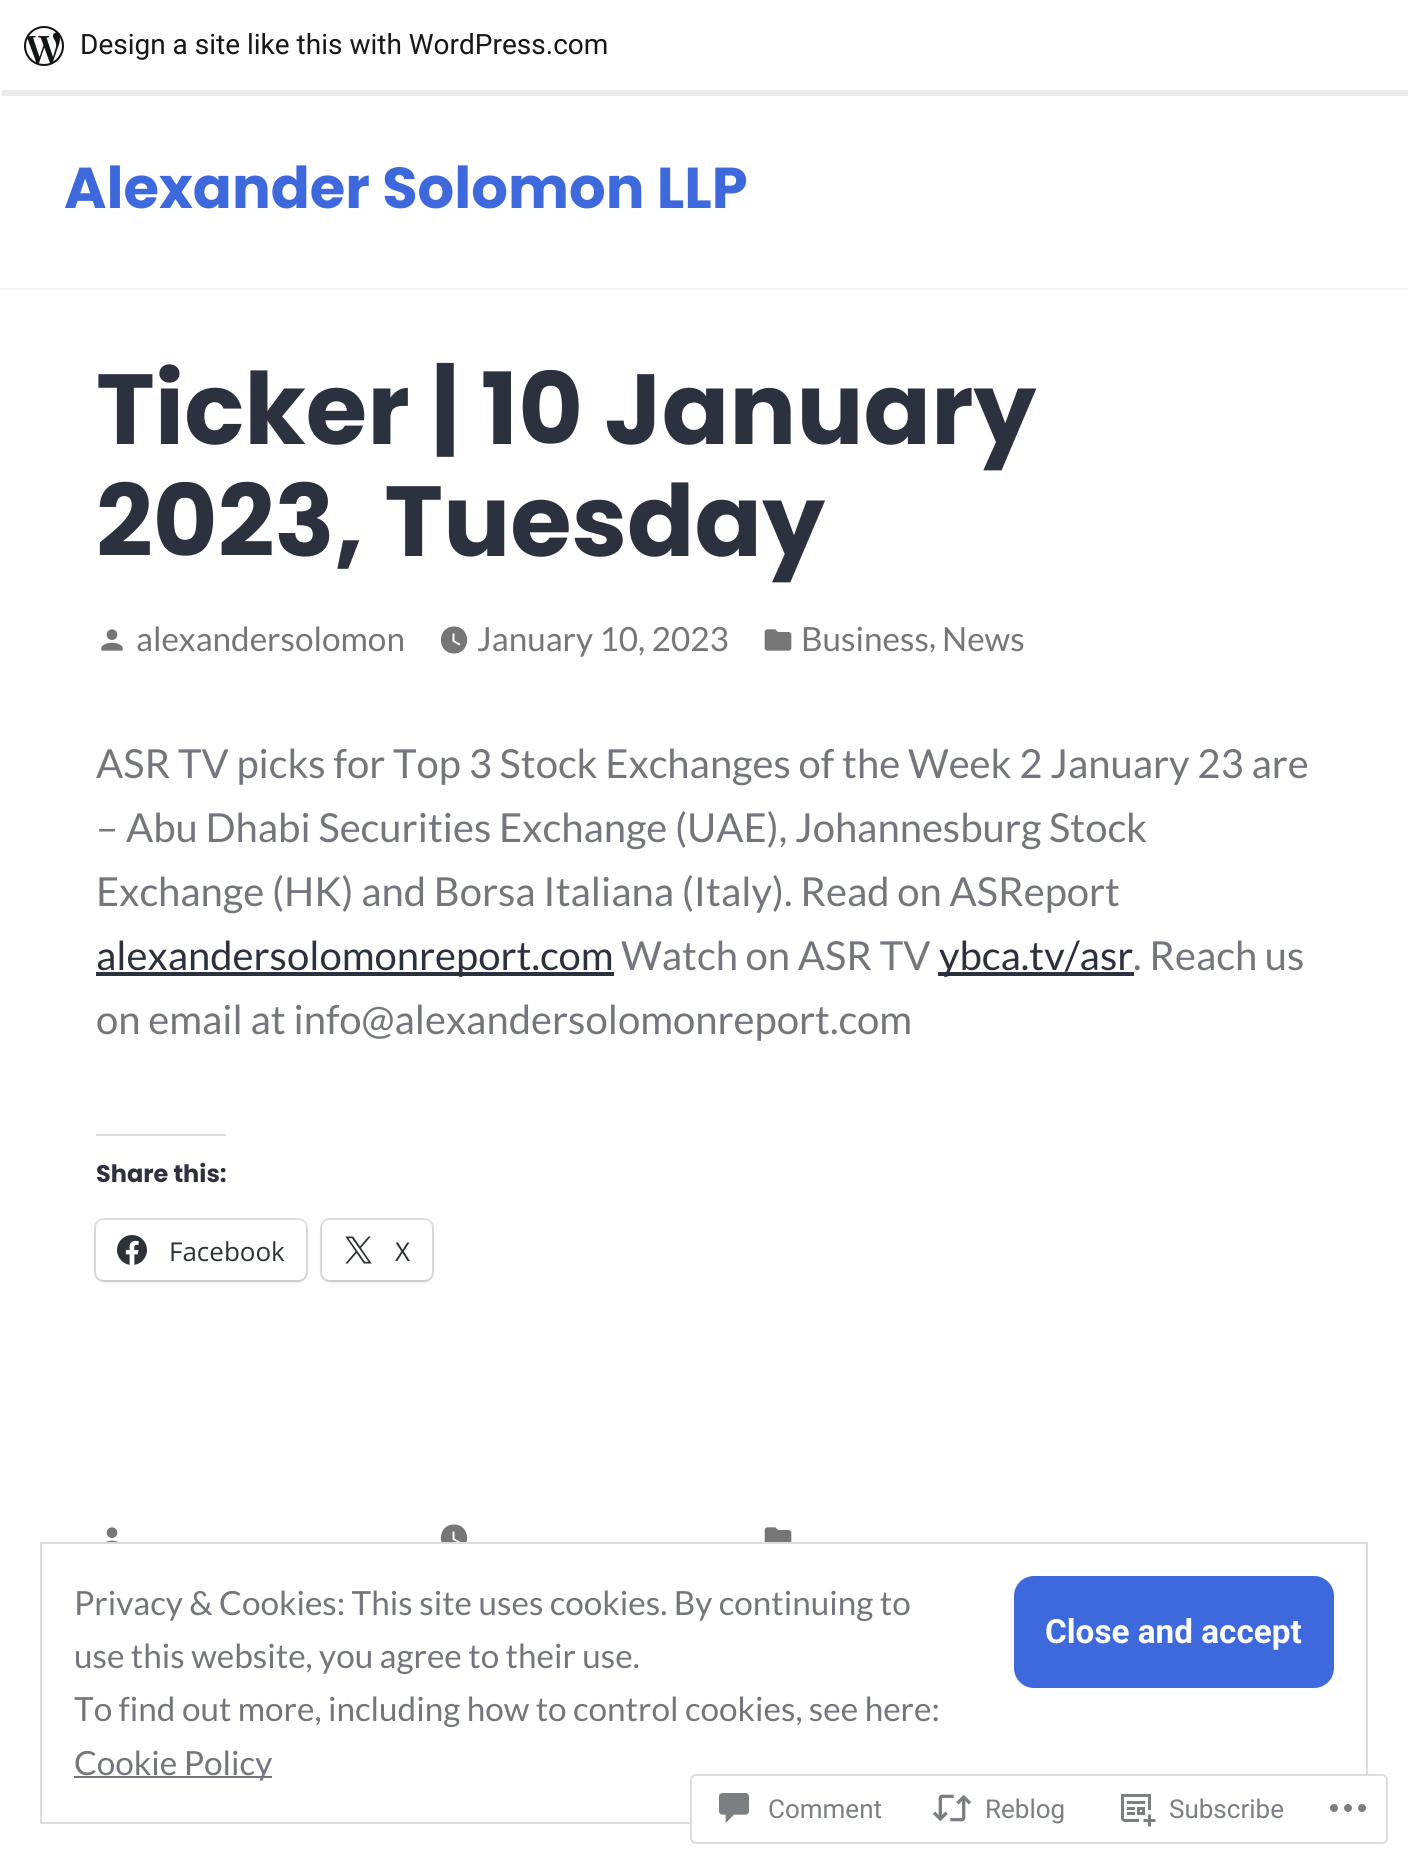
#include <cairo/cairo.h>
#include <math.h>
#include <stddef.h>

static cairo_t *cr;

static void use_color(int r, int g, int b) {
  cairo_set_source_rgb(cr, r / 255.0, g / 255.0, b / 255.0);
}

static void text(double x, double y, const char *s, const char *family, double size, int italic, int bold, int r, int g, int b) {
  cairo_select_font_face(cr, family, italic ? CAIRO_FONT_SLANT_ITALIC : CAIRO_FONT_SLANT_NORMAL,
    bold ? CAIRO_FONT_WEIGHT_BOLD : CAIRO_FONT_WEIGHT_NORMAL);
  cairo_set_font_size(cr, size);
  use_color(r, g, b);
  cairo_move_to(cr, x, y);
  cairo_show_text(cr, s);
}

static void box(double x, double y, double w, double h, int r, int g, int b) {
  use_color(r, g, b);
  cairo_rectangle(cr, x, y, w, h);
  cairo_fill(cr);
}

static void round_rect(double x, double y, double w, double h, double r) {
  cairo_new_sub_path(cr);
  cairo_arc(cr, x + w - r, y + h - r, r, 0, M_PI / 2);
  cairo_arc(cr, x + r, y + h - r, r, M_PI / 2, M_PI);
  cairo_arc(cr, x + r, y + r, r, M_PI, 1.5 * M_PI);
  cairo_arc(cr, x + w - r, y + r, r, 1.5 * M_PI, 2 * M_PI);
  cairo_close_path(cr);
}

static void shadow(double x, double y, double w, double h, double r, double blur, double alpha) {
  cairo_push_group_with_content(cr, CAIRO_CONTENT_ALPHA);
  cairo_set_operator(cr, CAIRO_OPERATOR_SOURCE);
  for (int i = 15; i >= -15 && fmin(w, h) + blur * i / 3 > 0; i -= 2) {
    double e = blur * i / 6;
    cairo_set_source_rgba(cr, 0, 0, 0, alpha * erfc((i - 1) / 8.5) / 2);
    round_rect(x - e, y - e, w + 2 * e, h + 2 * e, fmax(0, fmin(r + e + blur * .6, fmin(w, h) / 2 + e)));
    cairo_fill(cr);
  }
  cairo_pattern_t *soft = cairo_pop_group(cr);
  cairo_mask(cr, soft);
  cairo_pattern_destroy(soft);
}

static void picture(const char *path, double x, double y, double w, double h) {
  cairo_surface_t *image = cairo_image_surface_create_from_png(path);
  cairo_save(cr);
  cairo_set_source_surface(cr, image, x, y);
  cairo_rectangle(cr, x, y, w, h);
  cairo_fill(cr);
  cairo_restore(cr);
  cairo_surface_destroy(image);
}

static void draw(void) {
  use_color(255, 255, 255);
  cairo_paint(cr);
  cairo_set_source_rgba(cr, 0, 0, 0, 0.08);
  cairo_new_path(cr);
  cairo_move_to(cr, 2, 90);
  cairo_line_to(cr, 2, 96);
  cairo_line_to(cr, 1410, 96);
  cairo_line_to(cr, 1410, 6);
  cairo_line_to(cr, 1408, 6);
  cairo_line_to(cr, 1408, 90);
  cairo_close_path(cr);
  cairo_fill(cr);
  picture("img_01.png", 24, 26, 40, 40);
  box(0, 288, 1408, 2, 243, 243, 243);
  picture("img_02.png", 101, 629, 22, 22);
  use_color(118, 118, 118);
  cairo_new_path(cr);
  cairo_move_to(cr, 454, 626.5);
  cairo_curve_to(cr, 436.5, 626.5, 436.5, 653.5, 454, 653.5);
  cairo_curve_to(cr, 471.5, 653.5, 471.5, 626.5, 454, 626.5);
  cairo_close_path(cr);
  cairo_move_to(cr, 459.5, 645.5);
  cairo_line_to(cr, 452.5, 641.5);
  cairo_line_to(cr, 452.5, 633.5);
  cairo_line_to(cr, 454.5, 633.5);
  cairo_line_to(cr, 454.5, 640.5);
  cairo_line_to(cr, 460.5, 644);
  cairo_close_path(cr);
  cairo_fill(cr);
  picture("img_03.png", 764, 629, 28, 22);
  box(96, 972, 518, 4, 44, 49, 63);
  box(938, 972, 196, 4, 44, 49, 63);
  box(96, 1134, 130, 2, 220, 220, 222);
  round_rect(95, 1219, 212, 62, 9);
  use_color(224, 224, 224);
  cairo_stroke(cr);
  use_color(0, 0, 0);
  shadow(96, 1222, 210, 60, 8, 2, 0.12);
  use_color(255, 255, 255);
  round_rect(96, 1220, 210, 60, 8);
  cairo_fill(cr);
  picture("img_04.png", 117, 1235, 30, 30);
  round_rect(321, 1219, 112, 62, 9);
  use_color(224, 224, 224);
  cairo_stroke(cr);
  use_color(0, 0, 0);
  shadow(322, 1222, 110, 60, 8, 2, 0.12);
  use_color(255, 255, 255);
  round_rect(322, 1220, 110, 60, 8);
  cairo_fill(cr);
  picture("img_05.png", 345, 1236, 27, 28);
  picture("img_06.png", 105, 1527, 14, 15);
  use_color(118, 118, 118);
  cairo_new_path(cr);
  cairo_move_to(cr, 454, 1524.5);
  cairo_curve_to(cr, 436.5, 1524.5, 436.5, 1551.5, 454, 1551.5);
  cairo_curve_to(cr, 471.5, 1551.5, 471.5, 1524.5, 454, 1524.5);
  cairo_close_path(cr);
  cairo_move_to(cr, 459.5, 1543.5);
  cairo_line_to(cr, 452.5, 1539.5);
  cairo_line_to(cr, 452.5, 1531.5);
  cairo_line_to(cr, 454.5, 1531.5);
  cairo_line_to(cr, 454.5, 1538.5);
  cairo_line_to(cr, 460.5, 1542);
  cairo_close_path(cr);
  cairo_fill(cr);
  picture("img_07.png", 764, 1527, 28, 15);
  box(442, 1544, 24, 8, 255, 255, 255);
  cairo_rectangle(cr, 41, 1543, 1326, 280);
  use_color(221, 221, 221);
  cairo_stroke(cr);
  use_color(62, 105, 220);
  round_rect(1014, 1576, 320, 112, 20);
  cairo_fill(cr);
  box(74, 1776, 198, 2, 116, 118, 126);
  cairo_set_source_rgba(cr, 1, 1, 1, 0.98);
  round_rect(690, 1774, 698, 70, 6);
  cairo_fill(cr);
  round_rect(691, 1775, 696, 68, 5);
  cairo_set_source_rgba(cr, 0.863, 0.863, 0.871, 0.98);
  cairo_stroke(cr);
  picture("img_08.png", 719, 1793, 30, 30);
  picture("img_09.png", 932, 1794, 40, 28);
  picture("img_10.png", 1121, 1794, 35, 33);
  picture("img_11.png", 1330, 1804, 36, 8);
  text(80, 54, "Design a site like this with WordPress.com", "Roboto", 28, 0, 0, 23, 23, 23);
  text(64, 208, "Alexander Solomon LLP", "Poppins", 57.6, 0, 1, 62, 105, 220);
  text(96, 444, "Ticker | 10 January", "Poppins", 99.5, 0, 1, 44, 49, 63);
  text(96, 556, "2023, Tuesday", "Poppins", 99.5, 0, 1, 44, 49, 63);
  text(136, 651, "alexandersolomon", "Lato", 33.3, 0, 0, 118, 118, 118);
  text(477, 651, "January 10, 2023", "Lato", 33.3, 0, 0, 118, 118, 118);
  text(801, 651, "Business", "Lato", 33.3, 0, 0, 118, 118, 118);
  text(929, 648, ",", "Lato", 33.3, 0, 0, 118, 118, 118);
  text(942, 651, "News", "Lato", 33.3, 0, 0, 118, 118, 118);
  text(96, 778, "ASR TV picks for Top 3 Stock Exchanges of the Week 2 January 23 are", "Lato", 40, 0, 0, 116, 118, 126);
  text(96, 842, "– Abu Dhabi Securities Exchange (UAE), Johannesburg Stock", "Lato", 40, 0, 0, 116, 118, 126);
  text(96, 906, "Exchange (HK) and Borsa Italiana (Italy). Read on ASReport", "Lato", 40, 0, 0, 116, 118, 126);
  text(96, 970, "alexandersolomonreport.com", "Lato", 40, 0, 0, 44, 49, 63);
  text(621, 970, "Watch on ASR TV", "Lato", 40, 0, 0, 116, 118, 126);
  text(939, 970, "ybca.tv/asr", "Lato", 40, 0, 0, 44, 49, 63);
  text(1133, 970, ". Reach us", "Lato", 40, 0, 0, 116, 118, 126);
  text(96, 1034, "on email at info@alexandersolomonreport.com", "Lato", 40, 0, 0, 116, 118, 126);
  text(96, 1182, "Share this:", "Poppins", 24, 0, 1, 44, 49, 63);
  text(169, 1261, "Facebook", "Open Sans", 26, 0, 0, 44, 51, 56);
  text(395, 1261, "X", "Open Sans", 26, 0, 0, 44, 51, 56);
  text(74, 1615, "Privacy & Cookies: This site uses cookies. By continuing to", "Lato", 33.3, 0, 0, 116, 118, 126);
  text(1045, 1643, "Close and accept", "Roboto", 33.3, 0, 1, 255, 255, 255);
  text(74, 1668, "use this website, you agree to their use.", "Lato", 33.3, 0, 0, 116, 118, 126);
  text(74, 1721, "To find out more, including how to control cookies, see here:", "Lato", 33.3, 0, 0, 116, 118, 126);
  text(74, 1775, "Cookie Policy", "Lato", 33.3, 0, 0, 116, 118, 126);
  text(768, 1818, "Comment", "Roboto", 26, 0, 0, 123, 127, 133);
  text(985, 1818, "Reblog", "Roboto", 26, 0, 0, 123, 127, 133);
  text(1169, 1818, "Subscribe", "Roboto", 26, 0, 0, 123, 127, 133);
}

int main(void) {
  cairo_surface_t *surface = cairo_image_surface_create(CAIRO_FORMAT_RGB24, 1408, 1863);
  cr = cairo_create(surface);
  cairo_font_options_t *options = cairo_font_options_create();
  cairo_font_options_set_hint_metrics(options, CAIRO_HINT_METRICS_OFF);
  cairo_font_options_set_hint_style(options, CAIRO_HINT_STYLE_NONE);
  cairo_set_font_options(cr, options);
  cairo_set_miter_limit(cr, 4);
  draw();
  cairo_surface_write_to_png(surface, "out.png");
  cairo_font_options_destroy(options);
  cairo_destroy(cr);
  cairo_surface_destroy(surface);
  return 0;
}
